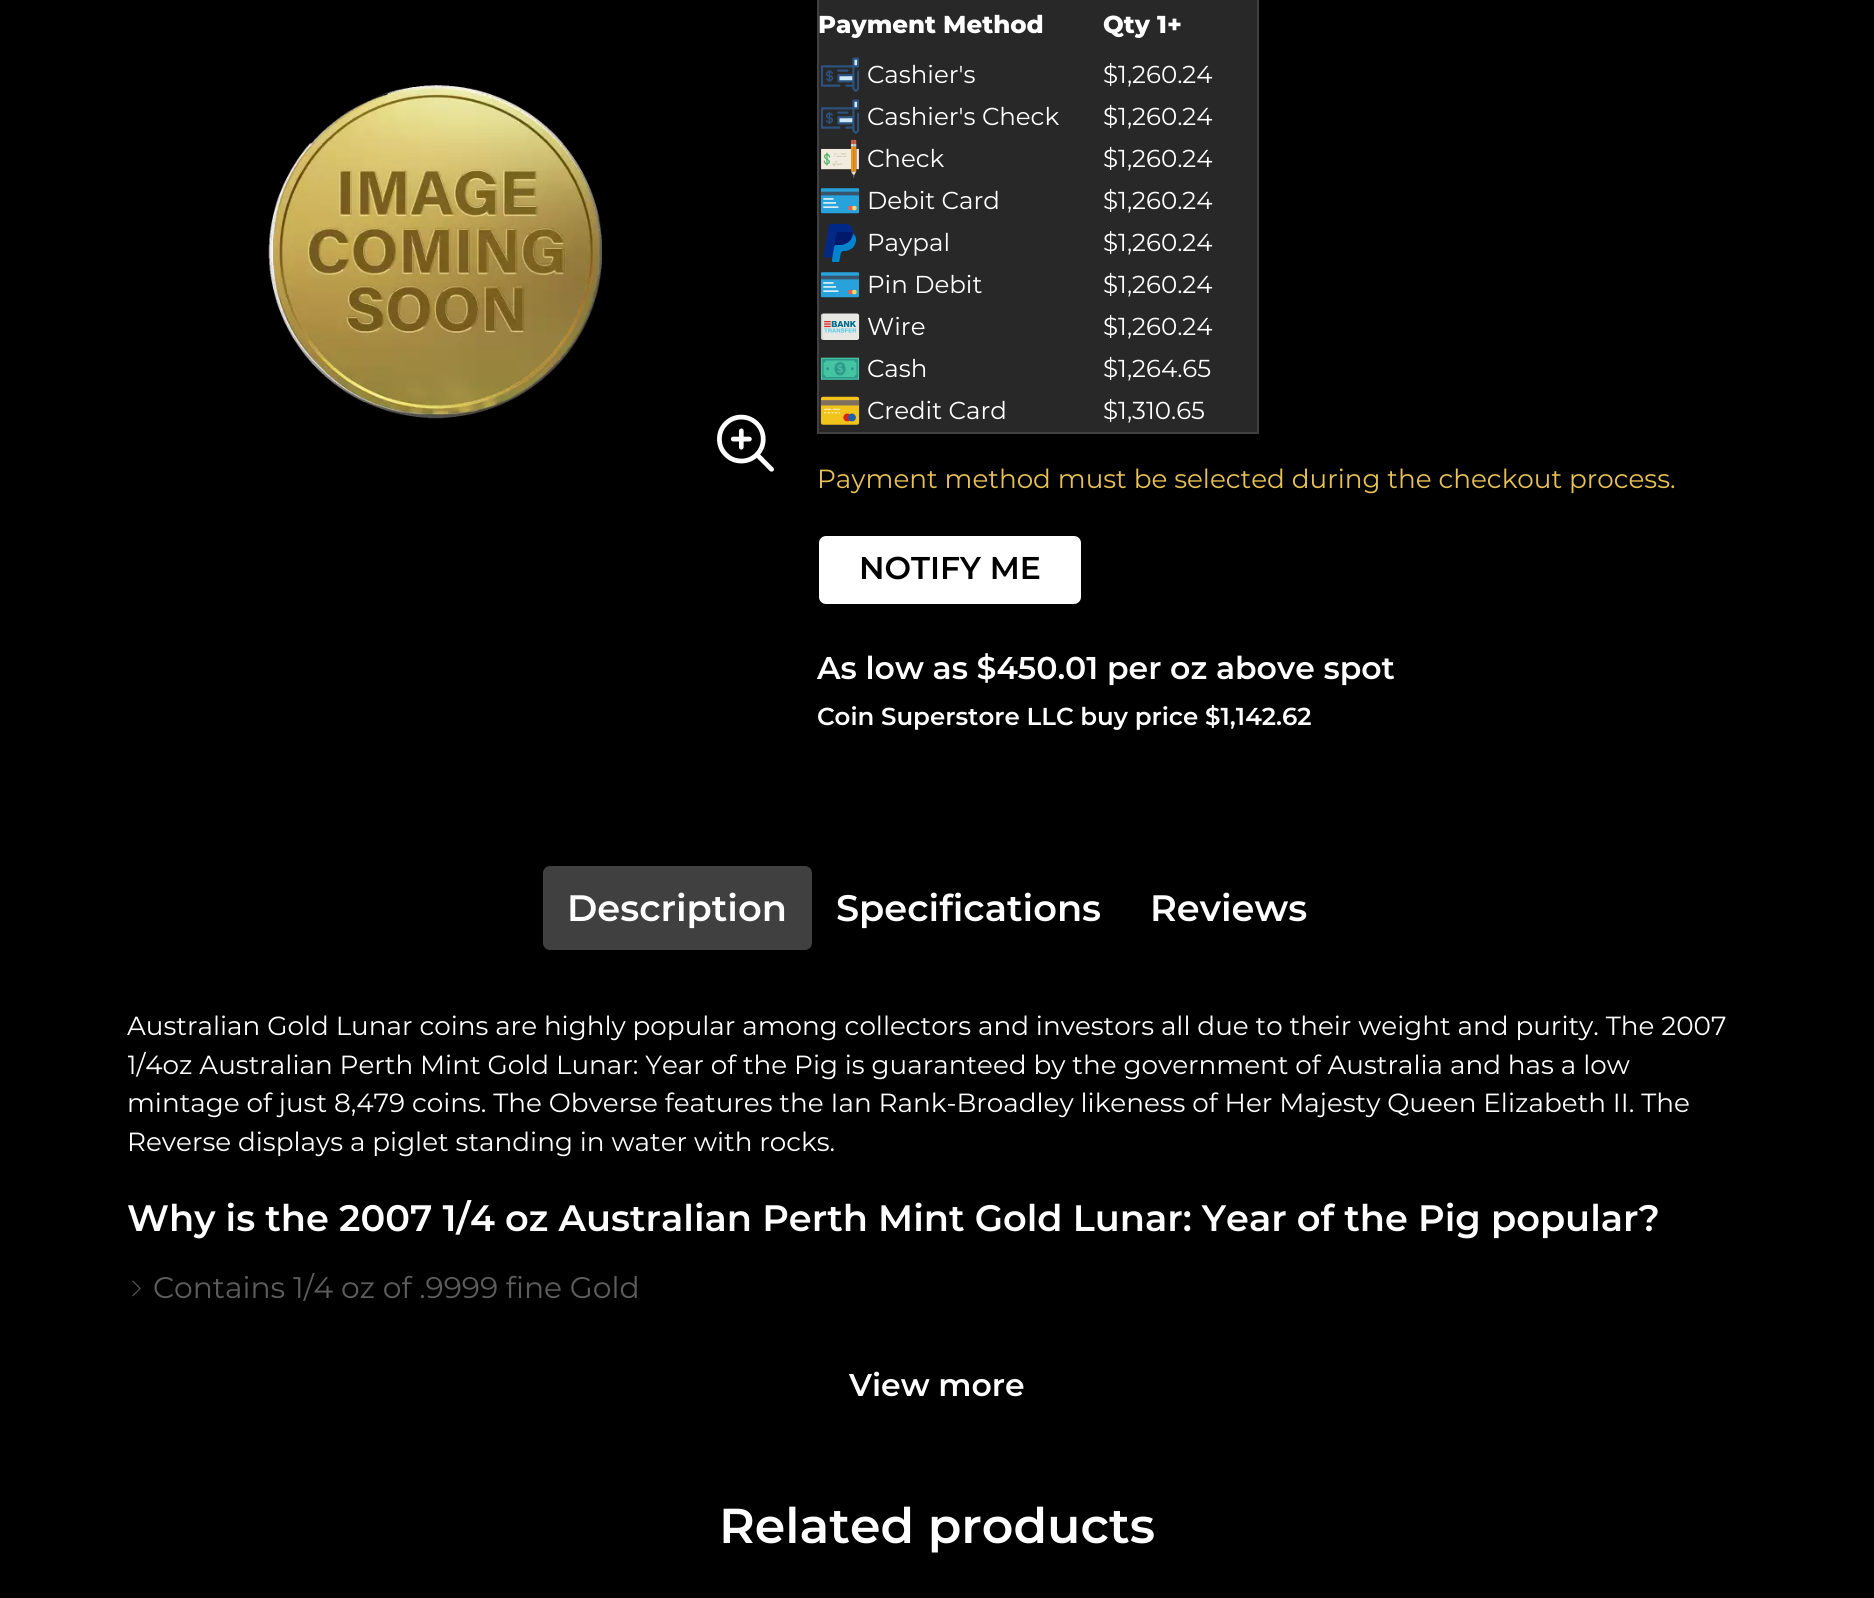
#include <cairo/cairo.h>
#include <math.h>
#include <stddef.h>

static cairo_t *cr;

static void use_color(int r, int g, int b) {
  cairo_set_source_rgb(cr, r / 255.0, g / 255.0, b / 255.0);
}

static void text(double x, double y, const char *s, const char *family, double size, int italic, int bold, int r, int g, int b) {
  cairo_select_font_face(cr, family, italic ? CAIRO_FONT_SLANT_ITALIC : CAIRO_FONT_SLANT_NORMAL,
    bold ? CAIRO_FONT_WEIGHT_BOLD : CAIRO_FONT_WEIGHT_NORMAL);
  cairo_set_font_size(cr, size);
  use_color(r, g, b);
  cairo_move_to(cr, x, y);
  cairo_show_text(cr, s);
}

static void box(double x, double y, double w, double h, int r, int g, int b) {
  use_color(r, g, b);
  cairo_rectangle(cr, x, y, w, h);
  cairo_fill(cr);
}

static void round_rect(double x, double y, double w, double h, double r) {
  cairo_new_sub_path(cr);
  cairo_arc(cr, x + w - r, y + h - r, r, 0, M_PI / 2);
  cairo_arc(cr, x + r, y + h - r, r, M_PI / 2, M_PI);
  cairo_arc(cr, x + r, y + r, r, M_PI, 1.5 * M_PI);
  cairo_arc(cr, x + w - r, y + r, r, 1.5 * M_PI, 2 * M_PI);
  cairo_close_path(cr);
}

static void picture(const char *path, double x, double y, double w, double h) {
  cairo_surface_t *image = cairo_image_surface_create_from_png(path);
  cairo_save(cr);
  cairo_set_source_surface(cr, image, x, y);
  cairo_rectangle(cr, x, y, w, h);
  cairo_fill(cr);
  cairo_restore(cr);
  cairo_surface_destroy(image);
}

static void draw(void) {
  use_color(0, 0, 0);
  cairo_paint(cr);
  picture("img_01.png", 268, 85, 334, 334);
  picture("img_02.png", 717, 414, 57, 58);
  box(819, 0, 438, 432, 40, 40, 40);
  box(1257, 0, 2, 434, 64, 64, 64);
  box(817, 432, 441, 2, 64, 64, 64);
  box(817, 0, 2, 434, 64, 64, 64);
  picture("img_03.png", 820, 57, 40, 35);
  picture("img_03.png", 820, 99, 40, 35);
  picture("img_04.png", 821, 139, 38, 39);
  picture("img_05.png", 820, 188, 40, 26);
  picture("img_06.png", 824, 223, 33, 39);
  picture("img_07.png", 820, 272, 40, 26);
  picture("img_08.png", 820, 313, 40, 27);
  picture("img_09.png", 820, 357, 40, 23);
  picture("img_10.png", 820, 396, 40, 29);
  use_color(255, 255, 255);
  round_rect(818, 535, 264, 70, 8);
  cairo_fill_preserve(cr);
  use_color(0, 0, 0);
  cairo_stroke(cr);
  use_color(64, 64, 64);
  round_rect(543, 866, 269, 84, 7);
  cairo_fill(cr);
  picture("img_11.png", 132, 1280, 9, 17);
  text(818, 33, "Payment Method", "Montserrat ExtraBold", 24.5, 0, 0, 255, 255, 255);
  text(1103, 33, "Qty 1+", "Montserrat ExtraBold", 24.5, 0, 0, 255, 255, 255);
  text(867, 83, "Cashier's", "Montserrat", 24.5, 0, 0, 255, 255, 255);
  text(1103, 83, "$1,260.24", "Montserrat", 24.5, 0, 0, 255, 255, 255);
  text(867, 125, "Cashier's Check", "Montserrat", 24.5, 0, 0, 255, 255, 255);
  text(1103, 125, "$1,260.24", "Montserrat", 24.5, 0, 0, 255, 255, 255);
  text(867, 167, "Check", "Montserrat", 24.5, 0, 0, 255, 255, 255);
  text(1103, 167, "$1,260.24", "Montserrat", 24.5, 0, 0, 255, 255, 255);
  text(867, 209, "Debit Card", "Montserrat", 24.5, 0, 0, 255, 255, 255);
  text(1103, 209, "$1,260.24", "Montserrat", 24.5, 0, 0, 255, 255, 255);
  text(867, 251, "Paypal", "Montserrat", 24.5, 0, 0, 255, 255, 255);
  text(1103, 251, "$1,260.24", "Montserrat", 24.5, 0, 0, 255, 255, 255);
  text(867, 293, "Pin Debit", "Montserrat", 24.5, 0, 0, 255, 255, 255);
  text(1103, 293, "$1,260.24", "Montserrat", 24.5, 0, 0, 255, 255, 255);
  text(867, 335, "Wire", "Montserrat", 24.5, 0, 0, 255, 255, 255);
  text(1103, 335, "$1,260.24", "Montserrat", 24.5, 0, 0, 255, 255, 255);
  text(867, 377, "Cash", "Montserrat", 24.5, 0, 0, 255, 255, 255);
  text(1103, 377, "$1,264.65", "Montserrat", 24.5, 0, 0, 255, 255, 255);
  text(867, 419, "Credit Card", "Montserrat", 24.5, 0, 0, 255, 255, 255);
  text(1103, 419, "$1,310.65", "Montserrat", 24.5, 0, 0, 255, 255, 255);
  text(817, 488, "Payment method must be selected during the checkout process.", "Montserrat", 26.25, 0, 0, 231, 193, 83);
  text(859, 579, "NOTIFY ME", "Montserrat SemiBold", 31.5, 0, 0, 0, 0, 0);
  text(817, 679, "As low as $450.01 per oz above spot", "Montserrat SemiBold", 31.5, 0, 0, 255, 255, 255);
  text(817, 725, "Coin Superstore LLC buy price $1,142.62", "Montserrat SemiBold", 24.5, 0, 0, 255, 255, 255);
  text(567, 921, "Description", "Montserrat SemiBold", 36.75, 0, 0, 255, 255, 255);
  text(836, 921, "Specifications", "Montserrat SemiBold", 36.75, 0, 0, 255, 255, 255);
  text(1150, 921, "Reviews", "Montserrat SemiBold", 36.75, 0, 0, 255, 255, 255);
  text(127, 1035, "Australian Gold Lunar coins are highly popular among collectors and investors all due to their weight and purity. The 2007", "Montserrat", 26.25, 0, 0, 255, 255, 255);
  cairo_save(cr);
  cairo_rectangle(cr, 128, 996, 1620, 315);
  cairo_clip(cr);
  text(127, 1074, "1/4oz Australian Perth Mint Gold Lunar: Year of the Pig is guaranteed by the government of Australia and has a low", "Montserrat", 26.25, 0, 0, 255, 255, 255);
  cairo_restore(cr);
  text(127, 1112, "mintage of just 8,479 coins. The Obverse features the Ian Rank-Broadley likeness of Her Majesty Queen Elizabeth II. The", "Montserrat", 26.25, 0, 0, 255, 255, 255);
  text(127, 1151, "Reverse displays a piglet standing in water with rocks.", "Montserrat", 26.25, 0, 0, 255, 255, 255);
  text(127, 1231, "Why is the 2007 1/4 oz Australian Perth Mint Gold Lunar: Year of the Pig popular?", "Montserrat SemiBold", 36.75, 0, 0, 255, 255, 255);
  text(153, 1298, "Contains 1/4 oz of .9999 fine Gold", "Montserrat", 29.75, 0, 0, 93, 93, 93);
  text(849, 1396, "View more", "Montserrat SemiBold", 31.5, 0, 0, 255, 255, 255);
  text(719, 1543, "Related products", "Montserrat SemiBold", 49, 0, 0, 255, 255, 255);
}

int main(void) {
  cairo_surface_t *surface = cairo_image_surface_create(CAIRO_FORMAT_RGB24, 1874, 1598);
  cr = cairo_create(surface);
  cairo_font_options_t *options = cairo_font_options_create();
  cairo_font_options_set_hint_metrics(options, CAIRO_HINT_METRICS_OFF);
  cairo_font_options_set_hint_style(options, CAIRO_HINT_STYLE_NONE);
  cairo_set_font_options(cr, options);
  cairo_set_miter_limit(cr, 4);
  draw();
  cairo_surface_write_to_png(surface, "out.png");
  cairo_font_options_destroy(options);
  cairo_destroy(cr);
  cairo_surface_destroy(surface);
  return 0;
}
